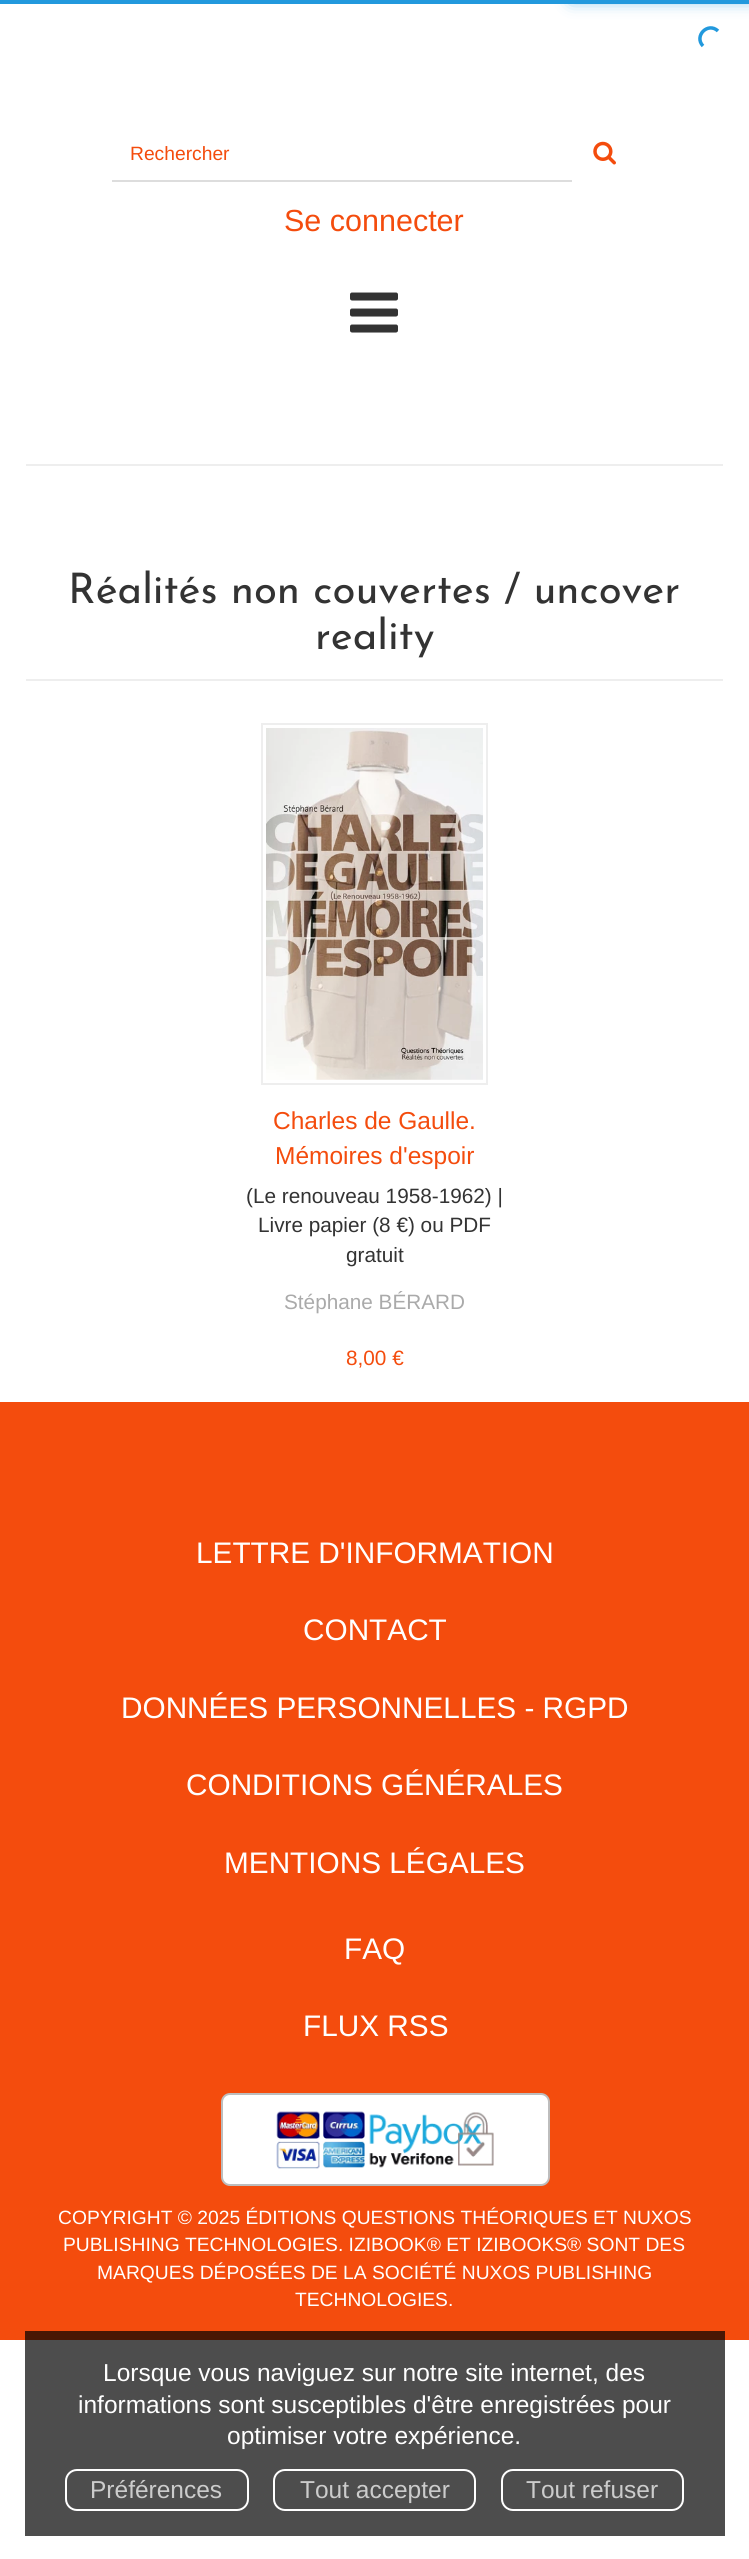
#include <cairo/cairo.h>
#include <math.h>
#include <stddef.h>

static cairo_t *cr;

static void use_color(int r, int g, int b) {
  cairo_set_source_rgb(cr, r / 255.0, g / 255.0, b / 255.0);
}

static void text(double x, double y, const char *s, const char *family, double size, int italic, int bold, int r, int g, int b) {
  cairo_select_font_face(cr, family, italic ? CAIRO_FONT_SLANT_ITALIC : CAIRO_FONT_SLANT_NORMAL,
    bold ? CAIRO_FONT_WEIGHT_BOLD : CAIRO_FONT_WEIGHT_NORMAL);
  cairo_set_font_size(cr, size);
  use_color(r, g, b);
  cairo_move_to(cr, x, y);
  cairo_show_text(cr, s);
}

static void box(double x, double y, double w, double h, int r, int g, int b) {
  use_color(r, g, b);
  cairo_rectangle(cr, x, y, w, h);
  cairo_fill(cr);
}

static void round_rect(double x, double y, double w, double h, double r) {
  cairo_new_sub_path(cr);
  cairo_arc(cr, x + w - r, y + h - r, r, 0, M_PI / 2);
  cairo_arc(cr, x + r, y + h - r, r, M_PI / 2, M_PI);
  cairo_arc(cr, x + r, y + r, r, M_PI, 1.5 * M_PI);
  cairo_arc(cr, x + w - r, y + r, r, 1.5 * M_PI, 2 * M_PI);
  cairo_close_path(cr);
}

static void shadow(double x, double y, double w, double h, double r, double blur, double alpha) {
  cairo_push_group_with_content(cr, CAIRO_CONTENT_ALPHA);
  cairo_set_operator(cr, CAIRO_OPERATOR_SOURCE);
  for (int i = 15; i >= -15 && fmin(w, h) + blur * i / 3 > 0; i -= 2) {
    double e = blur * i / 6;
    cairo_set_source_rgba(cr, 0, 0, 0, alpha * erfc((i - 1) / 8.5) / 2);
    round_rect(x - e, y - e, w + 2 * e, h + 2 * e, fmax(0, fmin(r + e + blur * .6, fmin(w, h) / 2 + e)));
    cairo_fill(cr);
  }
  cairo_pattern_t *soft = cairo_pop_group(cr);
  cairo_mask(cr, soft);
  cairo_pattern_destroy(soft);
}

static void picture(const char *path, double x, double y, double w, double h) {
  cairo_surface_t *image = cairo_image_surface_create_from_png(path);
  cairo_save(cr);
  cairo_set_source_surface(cr, image, x, y);
  cairo_rectangle(cr, x, y, w, h);
  cairo_fill(cr);
  cairo_restore(cr);
  cairo_surface_destroy(image);
}

static void draw(void) {
  use_color(255, 255, 255);
  cairo_paint(cr);
  box(25, 2340, 700, 196, 77, 77, 77);
  box(0, 0, 749, 4, 34, 153, 221);
  use_color(34, 153, 221);
  shadow(574, -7, 175, 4, 0, 9, 1);
  cairo_new_path(cr);
  cairo_move_to(cr, 703, 46);
  cairo_curve_to(cr, 693.5, 36, 708, 21.5, 718, 31);
  use_color(34, 153, 221);
  cairo_set_line_width(cr, 3.5);
  cairo_stroke(cr);
  box(112, 180, 460, 2, 221, 221, 221);
  picture("img_01.png", 593, 141, 23, 24);
  picture("img_02.png", 350, 292, 48, 41);
  box(26, 464, 697, 2, 238, 238, 238);
  box(26, 679, 697, 2, 238, 238, 238);
  cairo_rectangle(cr, 262, 724, 225, 360);
  cairo_set_line_width(cr, 2);
  cairo_stroke(cr);
  picture("img_03.png", 266, 728, 217, 352);
  box(0, 1402, 749, 938, 244, 76, 13);
  box(25, 2331, 700, 9, 73, 23, 4);
  use_color(255, 255, 255);
  round_rect(222, 2094, 327, 91, 8);
  cairo_fill_preserve(cr);
  use_color(189, 189, 189);
  cairo_stroke(cr);
  picture("img_04.png", 276, 2111, 218, 58);
  round_rect(66, 2470, 182, 40, 11);
  use_color(255, 255, 255);
  cairo_stroke(cr);
  round_rect(274, 2470, 201, 40, 11);
  cairo_stroke(cr);
  round_rect(502, 2470, 181, 40, 11);
  cairo_stroke(cr);
  text(130, 160, "Rechercher", "Liberation Sans", 19.25, 0, 0, 244, 76, 13);
  text(284, 231, "Se connecter", "Liberation Sans", 30.5, 0, 0, 244, 76, 13);
  text(68, 603, "Réalités non couvertes / uncover", "Josefin Sans Thin", 42, 0, 0, 51, 51, 51);
  text(315, 649, "reality", "Josefin Sans Thin", 42, 0, 0, 51, 51, 51);
  text(273, 1129, "Charles de Gaulle.", "Liberation Sans", 24.5, 0, 0, 244, 76, 13);
  text(275, 1164, "Mémoires d'espoir", "Liberation Sans", 24.5, 0, 0, 244, 76, 13);
  text(246, 1203, "(Le renouveau 1958-1962) |", "Liberation Sans", 20.75, 0, 0, 51, 51, 51);
  text(258, 1232, "Livre papier (8 €) ou PDF", "Liberation Sans", 20.75, 0, 0, 51, 51, 51);
  text(346, 1262, "gratuit", "Liberation Sans", 20.75, 0, 0, 51, 51, 51);
  text(284, 1309, "Stéphane BÉRARD", "Liberation Sans", 20.75, 0, 0, 170, 170, 170);
  text(346, 1365, "8,00 €", "Liberation Sans", 20.75, 0, 0, 244, 76, 13);
  text(196, 1563, "LETTRE D'INFORMATION", "Liberation Sans", 29.75, 0, 0, 255, 255, 255);
  text(303, 1640, "CONTACT", "Liberation Sans", 29.75, 0, 0, 255, 255, 255);
  text(121, 1718, "DONNÉES PERSONNELLES - RGPD", "Liberation Sans", 29.75, 0, 0, 255, 255, 255);
  text(186, 1795, "CONDITIONS GÉNÉRALES", "Liberation Sans", 29.75, 0, 0, 255, 255, 255);
  text(224, 1873, "MENTIONS LÉGALES", "Liberation Sans", 29.75, 0, 0, 255, 255, 255);
  text(344, 1959, "FAQ", "Liberation Sans", 29.75, 0, 0, 255, 255, 255);
  text(303, 2036, "FLUX RSS", "Liberation Sans", 29.75, 0, 0, 255, 255, 255);
  text(58, 2224, "COPYRIGHT © 2025 ÉDITIONS QUESTIONS THÉORIQUES ET NUXOS", "Liberation Sans", 19.25, 0, 0, 255, 255, 255);
  text(63, 2251, "PUBLISHING TECHNOLOGIES. IZIBOOK® ET IZIBOOKS® SONT DES", "Liberation Sans", 19.25, 0, 0, 255, 255, 255);
  text(97, 2279, "MARQUES DÉPOSÉES DE LA SOCIÉTÉ NUXOS PUBLISHING", "Liberation Sans", 19.25, 0, 0, 255, 255, 255);
  text(295, 2306, "TECHNOLOGIES.", "Liberation Sans", 19.25, 0, 0, 255, 255, 255);
  text(103, 2381, "Lorsque vous naviguez sur notre site internet, des", "Liberation Sans", 24.5, 0, 0, 255, 255, 255);
  text(78, 2413, "informations sont susceptibles d'être enregistrées pour", "Liberation Sans", 24.5, 0, 0, 255, 255, 255);
  text(227, 2444, "optimiser votre expérience.", "Liberation Sans", 24.5, 0, 0, 255, 255, 255);
  text(90, 2498, "Préférences", "Liberation Sans", 24.5, 0, 0, 204, 204, 204);
  text(300, 2498, "Tout accepter", "Liberation Sans", 24.5, 0, 0, 204, 204, 204);
  text(526, 2498, "Tout refuser", "Liberation Sans", 24.5, 0, 0, 204, 204, 204);
}

int main(void) {
  cairo_surface_t *surface = cairo_image_surface_create(CAIRO_FORMAT_RGB24, 749, 2559);
  cr = cairo_create(surface);
  cairo_font_options_t *options = cairo_font_options_create();
  cairo_font_options_set_hint_metrics(options, CAIRO_HINT_METRICS_OFF);
  cairo_font_options_set_hint_style(options, CAIRO_HINT_STYLE_NONE);
  cairo_set_font_options(cr, options);
  cairo_set_miter_limit(cr, 4);
  draw();
  cairo_surface_write_to_png(surface, "out.png");
  cairo_font_options_destroy(options);
  cairo_destroy(cr);
  cairo_surface_destroy(surface);
  return 0;
}
